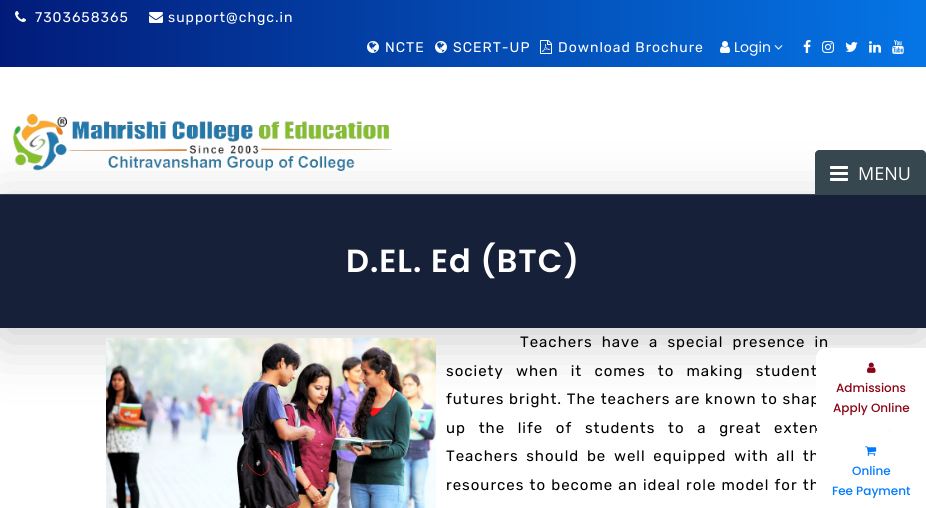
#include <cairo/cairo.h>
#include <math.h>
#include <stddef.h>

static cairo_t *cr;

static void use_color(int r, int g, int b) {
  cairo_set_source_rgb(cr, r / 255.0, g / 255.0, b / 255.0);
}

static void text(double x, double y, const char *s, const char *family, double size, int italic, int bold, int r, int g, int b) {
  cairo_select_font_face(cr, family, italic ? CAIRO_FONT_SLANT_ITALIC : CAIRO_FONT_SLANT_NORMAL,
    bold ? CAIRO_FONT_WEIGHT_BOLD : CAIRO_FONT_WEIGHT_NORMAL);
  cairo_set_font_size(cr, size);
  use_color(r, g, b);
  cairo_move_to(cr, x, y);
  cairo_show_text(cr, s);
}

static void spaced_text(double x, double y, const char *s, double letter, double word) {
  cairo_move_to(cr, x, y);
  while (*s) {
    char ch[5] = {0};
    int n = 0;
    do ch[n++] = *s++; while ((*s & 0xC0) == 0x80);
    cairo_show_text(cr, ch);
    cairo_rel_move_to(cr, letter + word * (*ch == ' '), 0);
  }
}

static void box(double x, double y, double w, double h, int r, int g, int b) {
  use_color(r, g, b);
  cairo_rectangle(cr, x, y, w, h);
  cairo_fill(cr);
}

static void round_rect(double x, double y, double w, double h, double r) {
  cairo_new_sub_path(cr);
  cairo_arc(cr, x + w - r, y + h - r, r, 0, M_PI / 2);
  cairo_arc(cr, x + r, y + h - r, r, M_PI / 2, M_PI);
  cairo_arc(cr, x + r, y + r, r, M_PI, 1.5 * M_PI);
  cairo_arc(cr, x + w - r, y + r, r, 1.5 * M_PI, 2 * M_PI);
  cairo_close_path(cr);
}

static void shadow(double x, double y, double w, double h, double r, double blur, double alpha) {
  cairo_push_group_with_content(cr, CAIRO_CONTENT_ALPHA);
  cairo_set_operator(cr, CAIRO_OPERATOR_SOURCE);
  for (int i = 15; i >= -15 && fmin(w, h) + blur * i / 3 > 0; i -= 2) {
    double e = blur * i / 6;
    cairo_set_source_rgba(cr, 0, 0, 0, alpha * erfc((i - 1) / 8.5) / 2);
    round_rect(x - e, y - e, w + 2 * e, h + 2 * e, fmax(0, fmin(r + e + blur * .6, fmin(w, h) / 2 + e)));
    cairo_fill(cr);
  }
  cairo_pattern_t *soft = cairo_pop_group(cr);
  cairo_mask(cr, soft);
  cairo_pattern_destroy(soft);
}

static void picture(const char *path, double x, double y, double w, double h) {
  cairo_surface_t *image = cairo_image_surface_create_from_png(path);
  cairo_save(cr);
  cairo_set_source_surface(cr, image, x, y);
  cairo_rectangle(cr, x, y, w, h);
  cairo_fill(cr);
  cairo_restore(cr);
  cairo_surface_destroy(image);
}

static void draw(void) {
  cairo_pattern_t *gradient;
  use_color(255, 255, 255);
  cairo_paint(cr);
  gradient = cairo_pattern_create_linear(0, 34, 926, 33);
  cairo_pattern_add_color_stop_rgba(gradient, 0, 0.008, 0.106, 0.475, 1);
  cairo_pattern_add_color_stop_rgba(gradient, 1, 0.02, 0.459, 0.902, 1);
  cairo_set_source(cr, gradient);
  cairo_pattern_destroy(gradient);
  cairo_rectangle(cr, 0, 0, 926, 67);
  cairo_fill(cr);
  picture("img_01.png", 15, 11, 11, 11);
  picture("img_02.png", 149, 12, 14, 11);
  picture("img_03.png", 367, 41, 12, 12);
  picture("img_04.png", 435, 41, 12, 12);
  picture("img_05.png", 540, 40, 12, 14);
  picture("img_06.png", 720, 41, 10, 12);
  picture("img_07.png", 774, 45, 9, 5);
  picture("img_08.png", 803, 40, 8, 13);
  picture("img_09.png", 822, 41, 12, 12);
  picture("img_10.png", 845, 42, 13, 10);
  picture("img_11.png", 869, 41, 12, 12);
  picture("img_12.png", 892, 40, 12, 14);
  use_color(0, 0, 0);
  shadow(0, 206, 926, 134, 0, 30, 0.2);
  picture("img_13.png", 13, 114, 380, 57);
  box(0, 194, 815, 1, 55, 71, 79);
  cairo_new_path(cr);
  cairo_move_to(cr, 819, 150);
  cairo_line_to(cr, 922, 150);
  cairo_curve_to(cr, 924, 150, 926, 152, 926, 154);
  cairo_line_to(cr, 926, 195);
  cairo_line_to(cr, 815, 195);
  cairo_line_to(cr, 815, 154);
  cairo_curve_to(cr, 815, 152, 817, 150, 819, 150);
  cairo_close_path(cr);
  cairo_fill(cr);
  picture("img_14.png", 830, 166, 18, 15);
  box(0, 195, 926, 133, 22, 33, 57);
  picture("img_15.png", 106, 338, 330, 170);
  picture("img_17.png", 889, 430, 2, 1);
  cairo_select_font_face(cr, "Rubik", CAIRO_FONT_SLANT_NORMAL, CAIRO_FONT_WEIGHT_NORMAL);
  cairo_set_font_size(cr, 14);
  use_color(255, 255, 255);
  spaced_text(35, 22, "7303658365", 1, 0);
  spaced_text(168, 22, "support@chgc.in", 1, 0);
  spaced_text(385, 52, "NCTE", 1, 0);
  spaced_text(453, 52, "SCERT-UP", 1, 0);
  spaced_text(558, 52, "Download Brochure", 1, 0);
  text(734, 52, "Login", "Poppins", 14, 0, 0, 255, 255, 255);
  text(858, 180, "MENU", "Open Sans", 18, 0, 0, 255, 255, 255);
  cairo_select_font_face(cr, "Poppins SemiBold", CAIRO_FONT_SLANT_NORMAL, CAIRO_FONT_WEIGHT_NORMAL);
  cairo_set_font_size(cr, 32);
  spaced_text(346, 272, "D.EL. Ed (BTC)", 1, 0);
  cairo_select_font_face(cr, "Rubik", CAIRO_FONT_SLANT_NORMAL, CAIRO_FONT_WEIGHT_NORMAL);
  cairo_set_font_size(cr, 15);
  use_color(0, 0, 0);
  spaced_text(520, 347, "Teachers have a special presence in", 1, 4.5);
  spaced_text(446, 376, "society when it comes to making student", 1, 7.5);
  spaced_text(446, 404, "futures bright. The teachers are known to shap", 1, 0);
  spaced_text(446, 433, "up the life of students to a great exten", 1, 8);
  spaced_text(446, 461, "Teachers should be well equipped with all th", 1, 3);
  spaced_text(446, 490, "resources to become an ideal role model for th", 1, 0.5);
  use_color(255, 255, 255);
  cairo_new_path(cr);
  cairo_move_to(cr, 826, 348);
  cairo_line_to(cr, 926, 348);
  cairo_line_to(cr, 926, 428);
  cairo_line_to(cr, 816, 428);
  cairo_line_to(cr, 816, 358);
  cairo_curve_to(cr, 816, 352.5, 820.5, 348, 826, 348);
  cairo_close_path(cr);
  cairo_fill(cr);
  picture("img_16.png", 867, 362, 9, 11);
  text(836, 392, "Admissions", "Poppins Medium", 12, 0, 0, 138, 5, 22);
  text(833, 412, "Apply Online", "Poppins Medium", 12, 0, 0, 138, 5, 22);
  use_color(255, 255, 255);
  cairo_new_path(cr);
  cairo_move_to(cr, 816, 431);
  cairo_line_to(cr, 926, 431);
  cairo_line_to(cr, 926, 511);
  cairo_line_to(cr, 826, 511);
  cairo_curve_to(cr, 820.5, 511, 816, 506.5, 816, 501);
  cairo_close_path(cr);
  cairo_fill(cr);
  picture("img_18.png", 865, 446, 12, 10);
  text(852, 475, "Online", "Poppins Medium", 12, 0, 0, 0, 123, 255);
  text(832, 495, "Fee Payment", "Poppins Medium", 12, 0, 0, 0, 123, 255);
}

int main(void) {
  cairo_surface_t *surface = cairo_image_surface_create(CAIRO_FORMAT_RGB24, 926, 508);
  cr = cairo_create(surface);
  cairo_font_options_t *options = cairo_font_options_create();
  cairo_font_options_set_hint_metrics(options, CAIRO_HINT_METRICS_OFF);
  cairo_font_options_set_hint_style(options, CAIRO_HINT_STYLE_NONE);
  cairo_set_font_options(cr, options);
  cairo_set_miter_limit(cr, 4);
  draw();
  cairo_surface_write_to_png(surface, "out.png");
  cairo_font_options_destroy(options);
  cairo_destroy(cr);
  cairo_surface_destroy(surface);
  return 0;
}
